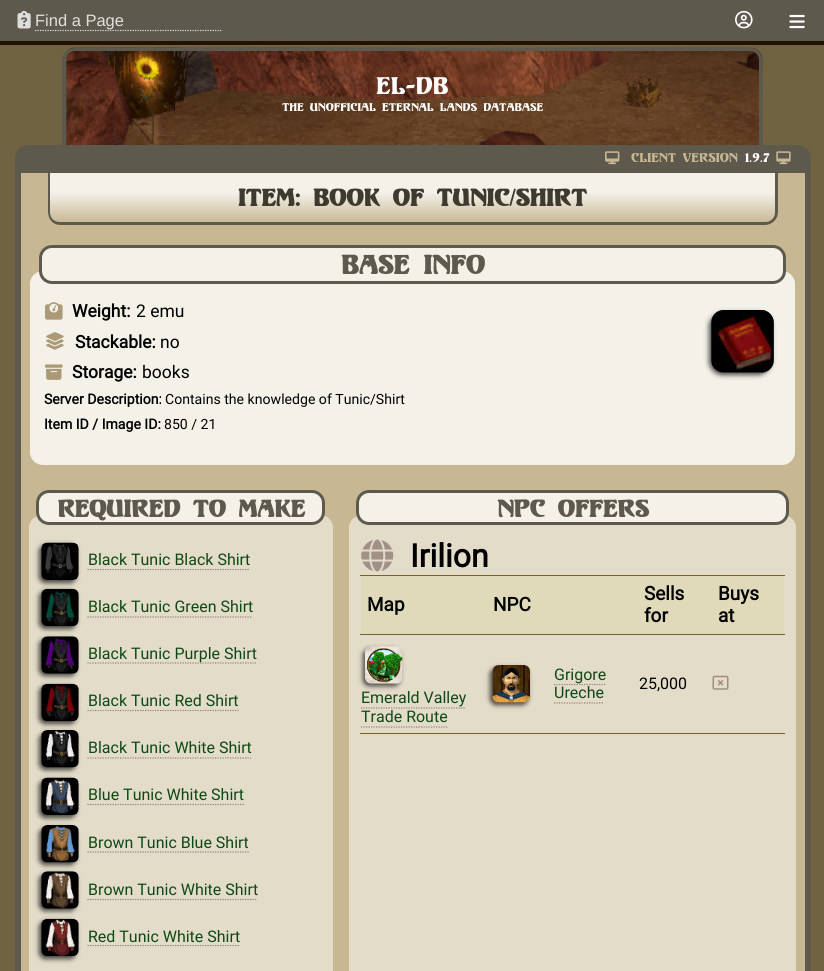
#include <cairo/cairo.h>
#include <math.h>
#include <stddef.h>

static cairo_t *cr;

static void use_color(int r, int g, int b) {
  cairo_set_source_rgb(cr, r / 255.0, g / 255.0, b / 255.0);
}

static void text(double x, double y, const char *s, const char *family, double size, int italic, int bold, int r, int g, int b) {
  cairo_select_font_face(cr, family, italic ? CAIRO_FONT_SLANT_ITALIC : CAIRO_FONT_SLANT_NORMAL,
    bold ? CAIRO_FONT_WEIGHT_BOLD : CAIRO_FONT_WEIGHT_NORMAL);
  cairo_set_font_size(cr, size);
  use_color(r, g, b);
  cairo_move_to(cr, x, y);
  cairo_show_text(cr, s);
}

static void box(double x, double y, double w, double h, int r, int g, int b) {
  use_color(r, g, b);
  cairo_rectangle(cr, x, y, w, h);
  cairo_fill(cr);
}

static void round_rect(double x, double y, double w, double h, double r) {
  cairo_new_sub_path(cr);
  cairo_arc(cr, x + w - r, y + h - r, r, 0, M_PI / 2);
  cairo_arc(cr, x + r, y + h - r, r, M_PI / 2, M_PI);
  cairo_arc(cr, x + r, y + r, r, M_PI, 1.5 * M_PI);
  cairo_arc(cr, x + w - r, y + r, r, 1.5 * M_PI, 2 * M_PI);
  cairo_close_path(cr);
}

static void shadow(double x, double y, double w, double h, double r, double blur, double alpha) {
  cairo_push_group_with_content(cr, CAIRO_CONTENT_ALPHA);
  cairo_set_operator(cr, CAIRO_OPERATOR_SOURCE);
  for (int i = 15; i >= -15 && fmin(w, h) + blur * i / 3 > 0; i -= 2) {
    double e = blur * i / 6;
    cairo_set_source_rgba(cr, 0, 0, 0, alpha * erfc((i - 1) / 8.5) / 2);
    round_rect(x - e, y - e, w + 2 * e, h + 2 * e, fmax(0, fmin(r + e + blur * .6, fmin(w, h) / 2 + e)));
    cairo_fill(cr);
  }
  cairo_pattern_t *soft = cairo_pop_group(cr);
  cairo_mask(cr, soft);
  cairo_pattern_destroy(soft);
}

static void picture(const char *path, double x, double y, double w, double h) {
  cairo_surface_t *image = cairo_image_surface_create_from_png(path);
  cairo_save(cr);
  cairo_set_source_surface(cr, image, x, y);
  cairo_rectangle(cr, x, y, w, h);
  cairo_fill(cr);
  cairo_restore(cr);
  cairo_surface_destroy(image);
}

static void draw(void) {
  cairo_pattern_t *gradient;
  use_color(112, 99, 66);
  cairo_paint(cr);
  box(0, 0, 824, 41, 94, 89, 77);
  box(0, 41, 824, 4, 33, 18, 2);
  picture("img_01.png", 17, 10, 14, 19);
  cairo_new_path(cr);
  cairo_move_to(cr, 35, 30.5);
  cairo_line_to(cr, 222.5, 30.5);
  use_color(221, 221, 221);
  cairo_set_line_width(cr, 1.2);
  cairo_set_dash(cr, (double[]){1.25, 1.25}, 2, 0);
  cairo_stroke(cr);
  picture("img_02.png", 735, 10, 18, 19);
  picture("img_03.png", 789, 14, 16, 15);
  use_color(104, 99, 87);
  cairo_new_path(cr);
  cairo_move_to(cr, 76, 48);
  cairo_line_to(cr, 750, 48);
  cairo_curve_to(cr, 757, 48, 763, 54, 763, 61);
  cairo_line_to(cr, 763, 145);
  cairo_line_to(cr, 63, 145);
  cairo_line_to(cr, 63, 61);
  cairo_curve_to(cr, 63, 54, 69, 48, 76, 48);
  cairo_close_path(cr);
  cairo_fill(cr);
  picture("img_04.png", 66, 47, 697, 98);
  use_color(94, 89, 77);
  cairo_set_fill_rule(cr, CAIRO_FILL_RULE_EVEN_ODD);
  cairo_new_path(cr);
  cairo_move_to(cr, 75, 48);
  cairo_line_to(cr, 750, 48);
  cairo_curve_to(cr, 757, 48, 762, 53, 762, 60);
  cairo_line_to(cr, 762, 145);
  cairo_line_to(cr, 62, 145);
  cairo_line_to(cr, 62, 60);
  cairo_curve_to(cr, 62, 53, 68, 48, 75, 48);
  cairo_close_path(cr);
  cairo_move_to(cr, 75, 51);
  cairo_line_to(cr, 750, 51);
  cairo_curve_to(cr, 755, 51, 759, 55, 759, 60);
  cairo_line_to(cr, 759, 145);
  cairo_line_to(cr, 66, 145);
  cairo_line_to(cr, 66, 60);
  cairo_curve_to(cr, 66, 55, 70, 51, 75, 51);
  cairo_close_path(cr);
  cairo_fill(cr);
  use_color(199, 184, 147);
  round_rect(18, 148, 790, 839, 10);
  cairo_fill_preserve(cr);
  use_color(94, 89, 77);
  cairo_set_line_width(cr, 6);
  cairo_set_dash(cr, NULL, 0, 0);
  cairo_stroke(cr);
  box(21, 149, 787, 24, 94, 89, 77);
  picture("img_05.png", 605, 151, 15, 14);
  picture("img_06.png", 776, 151, 15, 14);
  cairo_save(cr);
  cairo_set_fill_rule(cr, CAIRO_FILL_RULE_WINDING);
  cairo_new_path(cr);
  cairo_move_to(cr, 48, 173);
  cairo_line_to(cr, 778, 173);
  cairo_line_to(cr, 778, 212);
  cairo_curve_to(cr, 778, 219, 772, 225, 765, 225);
  cairo_line_to(cr, 61, 225);
  cairo_curve_to(cr, 54, 225, 48, 219, 48, 212);
  cairo_close_path(cr);
  cairo_clip(cr);
  gradient = cairo_pattern_create_linear(413, 172, 413, 223);
  cairo_pattern_add_color_stop_rgba(gradient, 0, 0.957, 0.945, 0.914, 1);
  cairo_pattern_add_color_stop_rgba(gradient, 0.4, 0.957, 0.945, 0.914, 1);
  cairo_pattern_add_color_stop_rgba(gradient, 1, 0.78, 0.722, 0.576, 1);
  cairo_set_source(cr, gradient);
  cairo_pattern_destroy(gradient);
  cairo_rectangle(cr, 48, 173, 730, 50);
  cairo_fill(cr);
  cairo_restore(cr);
  cairo_new_path(cr);
  cairo_move_to(cr, 48, 172);
  cairo_line_to(cr, 778, 172);
  cairo_line_to(cr, 778, 212);
  cairo_curve_to(cr, 778, 219, 772, 225, 765, 225);
  cairo_line_to(cr, 60, 225);
  cairo_curve_to(cr, 53, 225, 48, 219, 48, 212);
  cairo_close_path(cr);
  cairo_move_to(cr, 50, 172);
  cairo_line_to(cr, 775, 172);
  cairo_line_to(cr, 775, 212);
  cairo_curve_to(cr, 775, 218, 771, 222, 765, 222);
  cairo_line_to(cr, 60, 222);
  cairo_curve_to(cr, 54, 222, 50, 218, 50, 212);
  cairo_close_path(cr);
  cairo_fill(cr);
  use_color(244, 241, 233);
  round_rect(30, 271, 765, 194, 13);
  cairo_fill(cr);
  round_rect(40.5, 246.5, 744, 36, 11.5);
  cairo_fill_preserve(cr);
  use_color(94, 89, 77);
  cairo_set_line_width(cr, 3);
  cairo_stroke(cr);
  picture("img_07.png", 45, 302, 18, 18);
  use_color(0, 0, 0);
  shadow(709, 313, 62, 62, 13, 2.5, 0.7);
  use_color(68, 68, 68);
  round_rect(711, 310, 63, 63, 13);
  cairo_fill(cr);
  picture("img_08.png", 711, 310, 63, 63);
  picture("img_09.png", 46, 332, 18, 18);
  picture("img_10.png", 45, 364, 18, 16);
  use_color(227, 220, 201);
  round_rect(29, 515, 304, 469, 13);
  cairo_fill(cr);
  use_color(244, 241, 233);
  round_rect(37.5, 491.5, 286, 32, 11.5);
  cairo_fill_preserve(cr);
  use_color(94, 89, 77);
  cairo_stroke(cr);
  use_color(0, 0, 0);
  shadow(39, 545, 37, 38, 6, 2.5, 0.7);
  picture("img_11.png", 41, 542, 38, 38);
  cairo_new_path(cr);
  cairo_move_to(cr, 87.5, 569.5);
  cairo_line_to(cr, 250, 569.5);
  use_color(148, 129, 121);
  cairo_set_line_width(cr, 1.2);
  cairo_set_dash(cr, (double[]){1.25, 1.25}, 2, 0);
  cairo_stroke(cr);
  use_color(0, 0, 0);
  shadow(39, 591, 37, 38, 6, 2.5, 0.7);
  picture("img_12.png", 41, 588, 38, 39);
  cairo_new_path(cr);
  cairo_move_to(cr, 87.5, 617);
  cairo_line_to(cr, 252.5, 617);
  use_color(148, 129, 121);
  cairo_stroke(cr);
  use_color(0, 0, 0);
  shadow(39, 639, 37, 37, 6, 2.5, 0.7);
  picture("img_13.png", 41, 636, 38, 38);
  cairo_new_path(cr);
  cairo_move_to(cr, 87.5, 663);
  cairo_line_to(cr, 256, 663);
  use_color(148, 129, 121);
  cairo_stroke(cr);
  use_color(0, 0, 0);
  shadow(39, 686, 37, 38, 6, 2.5, 0.7);
  picture("img_14.png", 41, 683, 38, 39);
  cairo_new_path(cr);
  cairo_move_to(cr, 87.5, 710.5);
  cairo_line_to(cr, 239, 710.5);
  use_color(148, 129, 121);
  cairo_stroke(cr);
  use_color(0, 0, 0);
  shadow(39, 733, 37, 37, 6, 2.5, 0.7);
  picture("img_15.png", 41, 730, 38, 38);
  cairo_new_path(cr);
  cairo_move_to(cr, 87.5, 758);
  cairo_line_to(cr, 251, 758);
  use_color(148, 129, 121);
  cairo_stroke(cr);
  use_color(0, 0, 0);
  shadow(39, 780, 37, 38, 6, 2.5, 0.7);
  picture("img_16.png", 41, 777, 38, 38);
  cairo_new_path(cr);
  cairo_move_to(cr, 87.5, 804.5);
  cairo_line_to(cr, 244, 804.5);
  use_color(148, 129, 121);
  cairo_stroke(cr);
  use_color(0, 0, 0);
  shadow(39, 828, 37, 37, 6, 2.5, 0.7);
  picture("img_17.png", 41, 825, 38, 38);
  cairo_new_path(cr);
  cairo_move_to(cr, 87.5, 852);
  cairo_line_to(cr, 249, 852);
  use_color(148, 129, 121);
  cairo_stroke(cr);
  use_color(0, 0, 0);
  shadow(39, 874, 37, 37, 6, 2.5, 0.7);
  picture("img_18.png", 41, 871, 38, 38);
  cairo_new_path(cr);
  cairo_move_to(cr, 87.5, 899.5);
  cairo_line_to(cr, 257.5, 899.5);
  use_color(148, 129, 121);
  cairo_stroke(cr);
  use_color(0, 0, 0);
  shadow(39, 921, 37, 38, 6, 2.5, 0.7);
  picture("img_19.png", 41, 918, 38, 39);
  cairo_new_path(cr);
  cairo_move_to(cr, 87.5, 945.5);
  cairo_line_to(cr, 240, 945.5);
  use_color(148, 129, 121);
  cairo_stroke(cr);
  use_color(227, 220, 201);
  round_rect(349, 515, 447, 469, 13);
  cairo_fill(cr);
  use_color(244, 241, 233);
  round_rect(357.5, 491.5, 430, 32, 11.5);
  cairo_fill_preserve(cr);
  use_color(94, 89, 77);
  cairo_set_line_width(cr, 3);
  cairo_set_dash(cr, NULL, 0, 0);
  cairo_stroke(cr);
  picture("img_20.png", 361, 539, 33, 33);
  box(361, 576, 423, 58, 224, 218, 186);
  box(360, 575, 425, 1, 121, 95, 44);
  box(360, 634, 425, 1, 121, 95, 44);
  use_color(0, 0, 0);
  shadow(490, 668, 38, 37, 6, 2.5, 0.7);
  picture("img_21.png", 492, 665, 38, 38);
  cairo_new_path(cr);
  cairo_move_to(cr, 554, 684.5);
  cairo_line_to(cr, 606, 684.5);
  cairo_move_to(cr, 554, 703);
  cairo_line_to(cr, 604, 703);
  use_color(148, 129, 121);
  cairo_set_line_width(cr, 1.2);
  cairo_set_dash(cr, (double[]){1.25, 1.25}, 2, 0);
  cairo_stroke(cr);
  box(360, 733, 425, 1, 121, 95, 44);
  picture("img_22.png", 712, 675, 17, 15);
  use_color(0, 0, 0);
  shadow(363, 649, 37, 37, 6, 2.5, 0.7);
  picture("img_23.png", 365, 646, 38, 38);
  cairo_new_path(cr);
  cairo_move_to(cr, 361, 708);
  cairo_line_to(cr, 466, 708);
  use_color(148, 129, 121);
  cairo_stroke(cr);
  cairo_new_path(cr);
  cairo_move_to(cr, 361, 727);
  cairo_line_to(cr, 447.5, 727);
  cairo_stroke(cr);
  text(35, 26, "Find a Page", "Liberation Sans", 16.5, 0, 0, 224, 223, 222);
  text(376, 94, "EL-DB", "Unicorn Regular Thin", 24, 0, 0, 255, 255, 255);
  text(282, 111, "The Unofficial Eternal Lands Database", "Unicorn Regular Thin", 11.2, 0, 0, 255, 255, 255);
  text(631, 162, "Client version", "Unicorn Regular Thin", 12.75, 0, 0, 199, 184, 147);
  text(745, 162, "1.9.7", "Unicorn Regular Thin", 12.75, 0, 0, 255, 255, 255);
  text(238, 206, "Item: Book of Tunic/Shirt", "Unicorn Regular", 24, 0, 1, 62, 58, 47);
  text(341, 274, "Base Info", "Unicorn Regular", 26.5, 0, 1, 94, 89, 77);
  text(72, 317, "Weight:", "Roboto", 17.5, 0, 1, 0, 0, 0);
  text(136, 317, "2 emu", "Roboto", 17.5, 0, 0, 0, 0, 0);
  text(75, 348, "Stackable:", "Roboto", 17.5, 0, 1, 0, 0, 0);
  text(160, 348, "no", "Roboto", 17.5, 0, 0, 0, 0, 0);
  text(72, 378, "Storage:", "Roboto", 17.5, 0, 1, 0, 0, 0);
  text(142, 378, "books", "Roboto", 17.5, 0, 0, 0, 0, 0);
  text(44, 404, "Server Description:", "Roboto", 14.1, 0, 1, 0, 0, 0);
  text(165, 404, "Contains the knowledge of Tunic/Shirt", "Roboto", 14.1, 0, 0, 0, 0, 0);
  text(44, 429, "Item ID / Image ID:", "Roboto", 14.1, 0, 1, 0, 0, 0);
  text(164, 429, "850 / 21", "Roboto", 14.1, 0, 0, 0, 0, 0);
  text(57, 517, "Required to Make", "Unicorn Regular", 24, 0, 1, 94, 89, 77);
  text(88, 565, "Black Tunic Black Shirt", "Roboto", 16, 0, 0, 14, 73, 20);
  text(88, 612, "Black Tunic Green Shirt", "Roboto", 16, 0, 0, 14, 73, 20);
  text(88, 659, "Black Tunic Purple Shirt", "Roboto", 16, 0, 0, 14, 73, 20);
  text(88, 706, "Black Tunic Red Shirt", "Roboto", 16, 0, 0, 14, 73, 20);
  text(88, 753, "Black Tunic White Shirt", "Roboto", 16, 0, 0, 14, 73, 20);
  text(88, 800, "Blue Tunic White Shirt", "Roboto", 16, 0, 0, 14, 73, 20);
  text(88, 848, "Brown Tunic Blue Shirt", "Roboto", 16, 0, 0, 14, 73, 20);
  text(88, 895, "Brown Tunic White Shirt", "Roboto", 16, 0, 0, 14, 73, 20);
  text(88, 942, "Red Tunic White Shirt", "Roboto", 16, 0, 0, 14, 73, 20);
  text(497, 517, "NPC Offers", "Unicorn Regular", 24, 0, 1, 94, 89, 77);
  text(410, 567, "Irilion", "Roboto", 32, 0, 1, 0, 0, 0);
  text(367, 611, "Map", "Roboto", 19, 0, 1, 0, 0, 0);
  text(493, 611, "NPC", "Roboto", 19, 0, 1, 0, 0, 0);
  text(644, 600, "Sells", "Roboto", 19, 0, 1, 0, 0, 0);
  text(644, 622, "for", "Roboto", 19, 0, 1, 0, 0, 0);
  text(718, 600, "Buys", "Roboto", 19, 0, 1, 0, 0, 0);
  text(718, 622, "at", "Roboto", 19, 0, 1, 0, 0, 0);
  text(554, 680, "Grigore", "Roboto", 16, 0, 0, 14, 73, 20);
  text(554, 698, "Ureche", "Roboto", 16, 0, 0, 14, 73, 20);
  text(639, 689, "25,000", "Roboto", 16, 0, 0, 0, 0, 0);
  text(361, 703, "Emerald Valley", "Roboto", 16, 0, 0, 14, 73, 20);
  text(361, 722, "Trade Route", "Roboto", 16, 0, 0, 14, 73, 20);
}

int main(void) {
  cairo_surface_t *surface = cairo_image_surface_create(CAIRO_FORMAT_RGB24, 824, 971);
  cr = cairo_create(surface);
  cairo_font_options_t *options = cairo_font_options_create();
  cairo_font_options_set_hint_metrics(options, CAIRO_HINT_METRICS_OFF);
  cairo_font_options_set_hint_style(options, CAIRO_HINT_STYLE_NONE);
  cairo_set_font_options(cr, options);
  cairo_set_miter_limit(cr, 4);
  draw();
  cairo_surface_write_to_png(surface, "out.png");
  cairo_font_options_destroy(options);
  cairo_destroy(cr);
  cairo_surface_destroy(surface);
  return 0;
}
